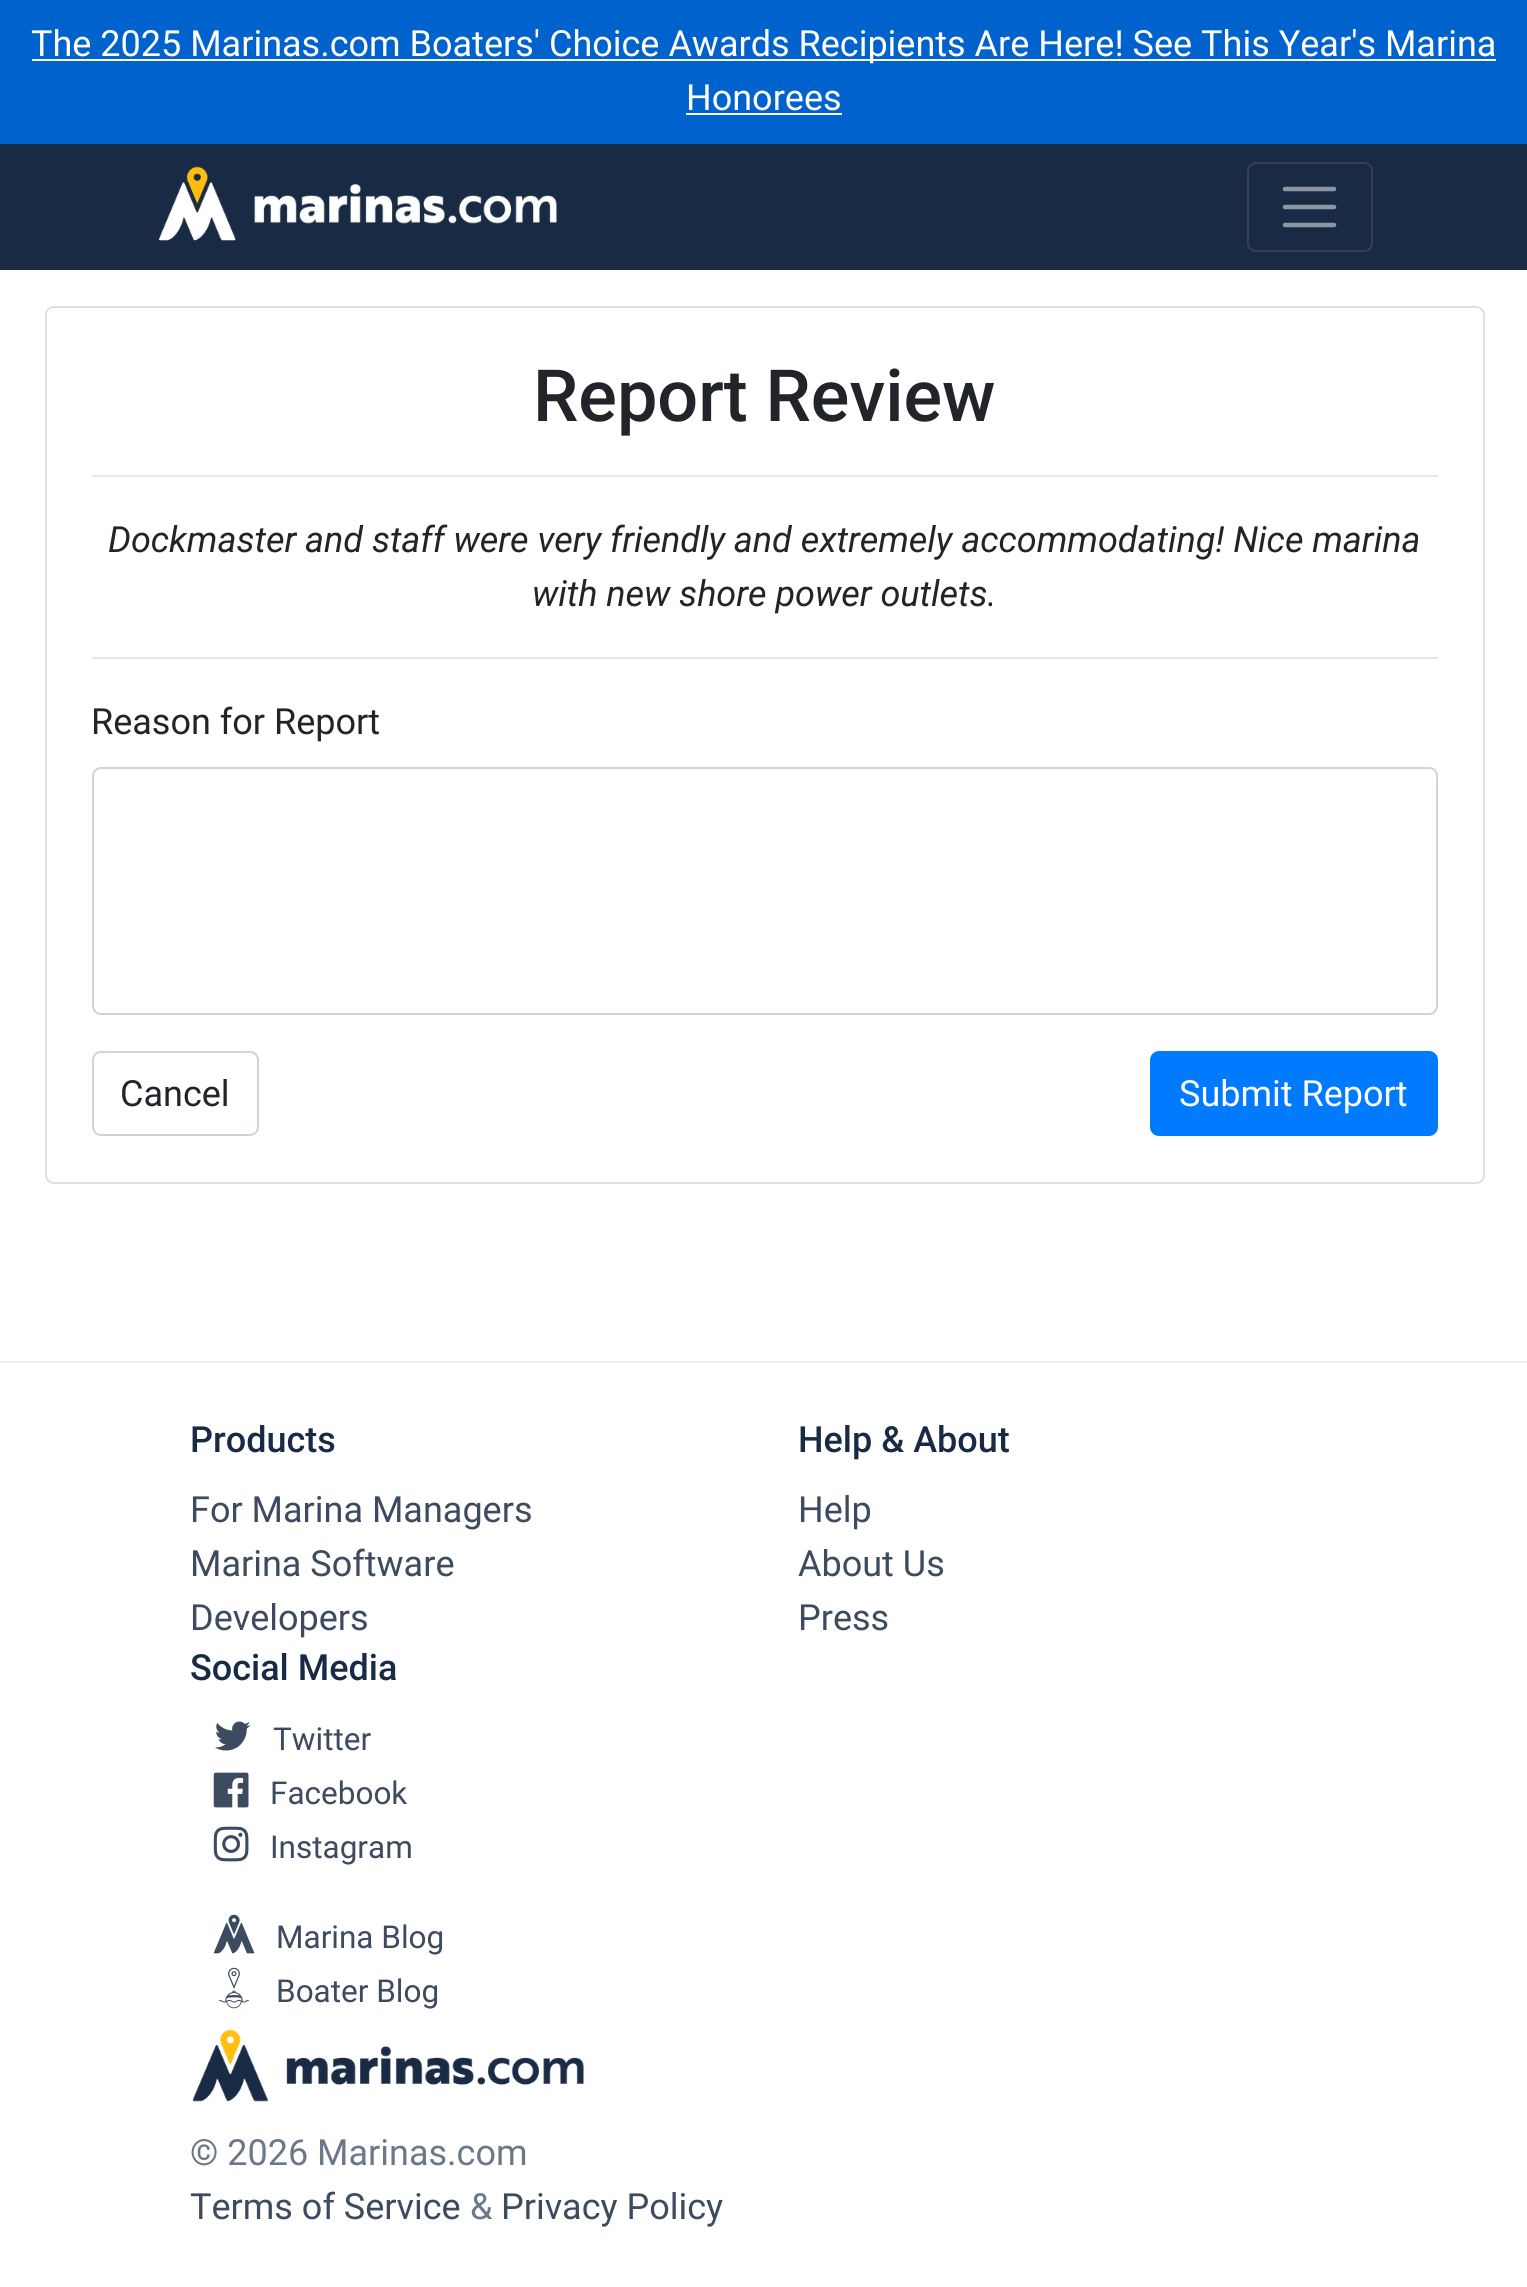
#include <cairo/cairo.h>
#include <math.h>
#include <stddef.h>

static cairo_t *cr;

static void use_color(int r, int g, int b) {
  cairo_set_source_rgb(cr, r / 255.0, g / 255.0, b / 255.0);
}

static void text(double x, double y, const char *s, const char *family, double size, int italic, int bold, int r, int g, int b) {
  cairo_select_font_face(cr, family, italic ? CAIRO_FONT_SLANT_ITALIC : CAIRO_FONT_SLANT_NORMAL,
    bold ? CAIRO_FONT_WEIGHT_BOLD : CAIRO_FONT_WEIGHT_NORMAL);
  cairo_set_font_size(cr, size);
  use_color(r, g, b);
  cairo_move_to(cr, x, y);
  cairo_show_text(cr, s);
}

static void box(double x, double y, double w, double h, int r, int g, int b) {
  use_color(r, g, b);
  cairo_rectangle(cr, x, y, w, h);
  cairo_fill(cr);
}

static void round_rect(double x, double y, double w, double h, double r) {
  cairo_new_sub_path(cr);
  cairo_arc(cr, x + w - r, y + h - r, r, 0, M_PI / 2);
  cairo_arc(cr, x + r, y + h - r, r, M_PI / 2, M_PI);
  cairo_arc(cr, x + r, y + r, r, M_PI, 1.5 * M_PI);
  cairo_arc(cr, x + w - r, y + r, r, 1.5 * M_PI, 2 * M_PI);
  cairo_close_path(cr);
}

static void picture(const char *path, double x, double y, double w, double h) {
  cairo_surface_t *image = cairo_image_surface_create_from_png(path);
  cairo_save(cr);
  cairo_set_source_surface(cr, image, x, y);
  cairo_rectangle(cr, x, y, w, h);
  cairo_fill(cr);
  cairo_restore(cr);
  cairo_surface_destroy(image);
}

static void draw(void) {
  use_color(255, 255, 255);
  cairo_paint(cr);
  box(0, 0, 1527, 144, 0, 98, 204);
  box(32, 59, 1464, 2, 255, 255, 255);
  box(686, 113, 156, 2, 255, 255, 255);
  box(0, 144, 1527, 126, 25, 43, 68);
  picture("img_01.png", 159, 166, 398, 75);
  round_rect(1248, 163, 124, 88, 8);
  use_color(48, 64, 87);
  cairo_stroke(cr);
  cairo_new_path(cr);
  cairo_move_to(cr, 1285, 189);
  cairo_line_to(cr, 1334, 189);
  cairo_move_to(cr, 1285, 207);
  cairo_line_to(cr, 1334, 207);
  cairo_move_to(cr, 1285, 225);
  cairo_line_to(cr, 1334, 225);
  use_color(140, 149, 162);
  cairo_set_line_width(cr, 4.5);
  cairo_set_line_cap(cr, CAIRO_LINE_CAP_ROUND);
  cairo_stroke(cr);
  round_rect(46, 307, 1438, 876, 8);
  use_color(223, 223, 223);
  cairo_set_line_width(cr, 2);
  cairo_set_line_cap(cr, CAIRO_LINE_CAP_BUTT);
  cairo_stroke(cr);
  box(92, 475, 1346, 2, 230, 230, 230);
  box(92, 657, 1346, 2, 230, 230, 230);
  round_rect(93, 768, 1344, 246, 8);
  use_color(206, 212, 218);
  cairo_stroke(cr);
  round_rect(93, 1052, 165, 83, 8);
  cairo_stroke(cr);
  use_color(0, 123, 255);
  round_rect(1151, 1052, 286, 83, 8);
  cairo_fill_preserve(cr);
  cairo_stroke(cr);
  box(0, 1361, 1527, 2, 238, 238, 238);
  picture("img_02.png", 215, 1721, 36, 30);
  picture("img_03.png", 213, 1772, 36, 36);
  picture("img_04.png", 213, 1826, 36, 36);
  picture("img_05.png", 213, 1914, 42, 40);
  picture("img_06.png", 219, 1967, 30, 42);
  picture("img_07.png", 192, 2029, 392, 73);
  text(31, 56, "The 2025 Marinas.com Boaters' Choice Awards Recipients Are Here! See This Year's Marina", "Roboto", 36, 0, 0, 255, 255, 255);
  text(686, 110, "Honorees", "Roboto", 36, 0, 0, 255, 255, 255);
  text(533, 421, "Report Review", "Roboto Medium", 72, 0, 0, 33, 37, 41);
  text(108, 552, "Dockmaster and staff were very friendly and extremely accommodating! Nice marina", "Roboto", 36, 1, 0, 33, 37, 41);
  text(532, 606, "with new shore power outlets.", "Roboto", 36, 1, 0, 33, 37, 41);
  text(91, 734, "Reason for Report", "Roboto", 36, 0, 0, 33, 37, 41);
  text(120, 1106, "Cancel", "Roboto", 36, 0, 0, 33, 37, 41);
  text(1179, 1106, "Submit Report", "Roboto", 36, 0, 0, 255, 255, 255);
  text(190, 1452, "Products", "Roboto Medium", 36, 0, 0, 25, 43, 68);
  text(190, 1522, "For Marina Managers", "Roboto", 36, 0, 0, 61, 75, 96);
  text(190, 1576, "Marina Software", "Roboto", 36, 0, 0, 61, 75, 96);
  text(190, 1630, "Developers", "Roboto", 36, 0, 0, 61, 75, 96);
  text(798, 1452, "Help & About", "Roboto Medium", 36, 0, 0, 25, 43, 68);
  text(798, 1522, "Help", "Roboto", 36, 0, 0, 61, 75, 96);
  text(798, 1576, "About Us", "Roboto", 36, 0, 0, 61, 75, 96);
  text(798, 1630, "Press", "Roboto", 36, 0, 0, 61, 75, 96);
  text(190, 1680, "Social Media", "Roboto Medium", 36, 0, 0, 25, 43, 68);
  text(273, 1750, "Twitter", "Roboto", 31.5, 0, 0, 61, 75, 96);
  text(270, 1804, "Facebook", "Roboto", 31.5, 0, 0, 61, 75, 96);
  text(270, 1858, "Instagram", "Roboto", 31.5, 0, 0, 61, 75, 96);
  text(276, 1948, "Marina Blog", "Roboto", 31.5, 0, 0, 61, 75, 96);
  text(276, 2002, "Boater Blog", "Roboto", 31.5, 0, 0, 61, 75, 96);
  text(190, 2165, "© 2026 Marinas.com", "Roboto", 36, 0, 0, 106, 120, 138);
  text(190, 2219, "Terms of Service", "Roboto", 36, 0, 0, 61, 75, 96);
  text(470, 2219, "&", "Roboto", 36, 0, 0, 106, 120, 138);
  text(501, 2219, "Privacy Policy", "Roboto", 36, 0, 0, 61, 75, 96);
}

int main(void) {
  cairo_surface_t *surface = cairo_image_surface_create(CAIRO_FORMAT_RGB24, 1527, 2287);
  cr = cairo_create(surface);
  cairo_font_options_t *options = cairo_font_options_create();
  cairo_font_options_set_hint_metrics(options, CAIRO_HINT_METRICS_OFF);
  cairo_font_options_set_hint_style(options, CAIRO_HINT_STYLE_NONE);
  cairo_set_font_options(cr, options);
  cairo_set_miter_limit(cr, 4);
  draw();
  cairo_surface_write_to_png(surface, "out.png");
  cairo_font_options_destroy(options);
  cairo_destroy(cr);
  cairo_surface_destroy(surface);
  return 0;
}
